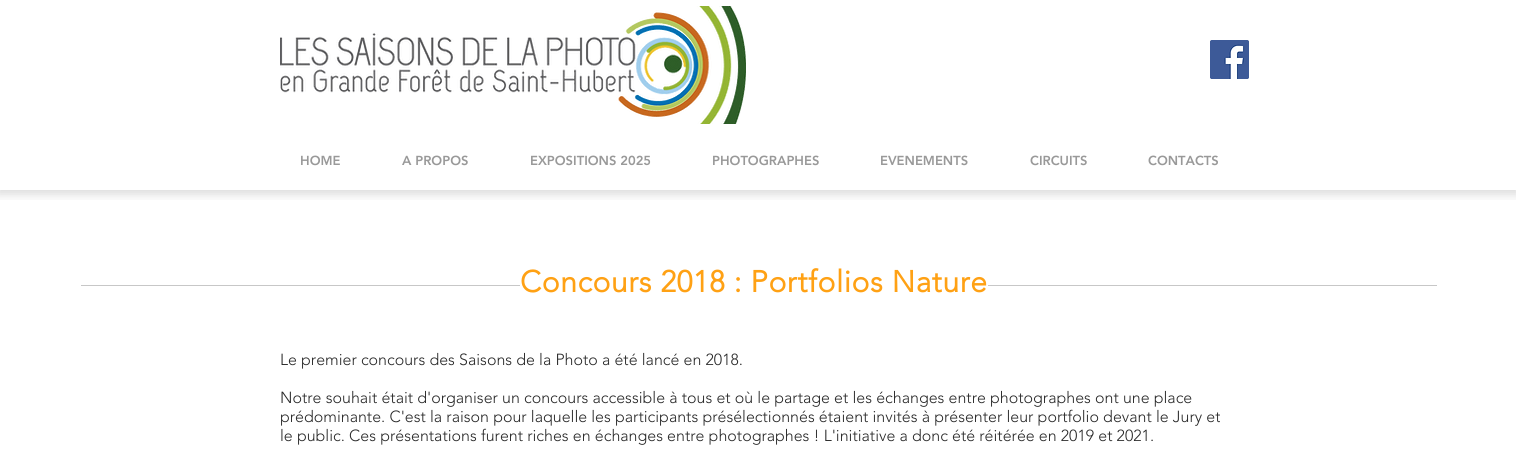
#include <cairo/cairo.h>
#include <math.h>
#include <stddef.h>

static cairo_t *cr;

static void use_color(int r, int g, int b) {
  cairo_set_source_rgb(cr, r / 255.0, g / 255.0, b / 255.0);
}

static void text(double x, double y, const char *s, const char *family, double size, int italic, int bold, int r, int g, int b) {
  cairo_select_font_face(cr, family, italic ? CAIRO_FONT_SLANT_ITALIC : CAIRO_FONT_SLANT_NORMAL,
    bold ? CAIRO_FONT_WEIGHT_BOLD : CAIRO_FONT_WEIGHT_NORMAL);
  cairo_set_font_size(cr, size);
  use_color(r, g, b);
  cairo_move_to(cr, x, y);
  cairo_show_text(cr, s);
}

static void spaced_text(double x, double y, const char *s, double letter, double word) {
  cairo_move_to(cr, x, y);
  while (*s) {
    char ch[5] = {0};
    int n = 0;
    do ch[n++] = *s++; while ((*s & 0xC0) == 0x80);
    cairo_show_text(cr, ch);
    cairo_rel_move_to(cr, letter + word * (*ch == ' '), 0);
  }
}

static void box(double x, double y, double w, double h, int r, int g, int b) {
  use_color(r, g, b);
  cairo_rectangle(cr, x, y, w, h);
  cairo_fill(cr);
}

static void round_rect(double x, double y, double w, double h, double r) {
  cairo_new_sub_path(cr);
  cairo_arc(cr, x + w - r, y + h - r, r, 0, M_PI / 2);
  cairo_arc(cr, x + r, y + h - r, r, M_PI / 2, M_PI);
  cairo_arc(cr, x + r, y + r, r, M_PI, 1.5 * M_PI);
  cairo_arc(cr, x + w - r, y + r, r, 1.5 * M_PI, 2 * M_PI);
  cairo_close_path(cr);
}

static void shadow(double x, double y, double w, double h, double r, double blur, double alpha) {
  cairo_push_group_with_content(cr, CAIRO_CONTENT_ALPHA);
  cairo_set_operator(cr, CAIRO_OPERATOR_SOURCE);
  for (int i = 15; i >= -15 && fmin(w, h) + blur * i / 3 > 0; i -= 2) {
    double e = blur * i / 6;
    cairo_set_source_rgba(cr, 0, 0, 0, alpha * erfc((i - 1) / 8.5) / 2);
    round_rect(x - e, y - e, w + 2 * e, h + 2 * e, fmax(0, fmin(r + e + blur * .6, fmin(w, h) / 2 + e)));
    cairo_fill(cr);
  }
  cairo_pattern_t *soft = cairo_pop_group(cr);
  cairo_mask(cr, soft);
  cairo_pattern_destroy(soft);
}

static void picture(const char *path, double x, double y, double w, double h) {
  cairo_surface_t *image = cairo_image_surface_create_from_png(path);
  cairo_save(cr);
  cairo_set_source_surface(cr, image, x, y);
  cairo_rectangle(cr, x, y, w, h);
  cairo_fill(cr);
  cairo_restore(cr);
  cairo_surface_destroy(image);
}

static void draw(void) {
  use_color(255, 255, 255);
  cairo_paint(cr);
  cairo_save(cr);
  cairo_rectangle(cr, 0, 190, 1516, 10);
  cairo_clip(cr);
  use_color(0, 0, 0);
  shadow(-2, 0, 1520, 194, 0, 5.5, 0.15);
  cairo_restore(cr);
  picture("img_01.png", 280, 6, 466, 118);
  picture("img_02.png", 1210, 40, 39, 39);
  box(81, 285, 1356, 1, 199, 199, 199);
  box(520, 285, 468, 1, 255, 255, 255);
  text(300, 165, "HOME", "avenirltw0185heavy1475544 Black", 13, 0, 0, 153, 153, 153);
  text(402, 165, "A PROPOS", "avenirltw0185heavy1475544 Black", 13, 0, 0, 153, 153, 153);
  text(530, 165, "EXPOSITIONS 2025", "avenirltw0185heavy1475544 Black", 13, 0, 0, 153, 153, 153);
  text(712, 165, "PHOTOGRAPHES", "avenirltw0185heavy1475544 Black", 13, 0, 0, 153, 153, 153);
  text(880, 165, "EVENEMENTS", "avenirltw0185heavy1475544 Black", 13, 0, 0, 153, 153, 153);
  text(1030, 165, "CIRCUITS", "avenirltw0185heavy1475544 Black", 13, 0, 0, 153, 153, 153);
  text(1148, 165, "CONTACTS", "avenirltw0185heavy1475544 Black", 13, 0, 0, 153, 153, 153);
  cairo_select_font_face(cr, "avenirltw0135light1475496", CAIRO_FONT_SLANT_NORMAL, CAIRO_FONT_WEIGHT_BOLD);
  cairo_set_font_size(cr, 30);
  use_color(255, 161, 20);
  spaced_text(520, 292, "Concours 2018 : Portfolios Nature", 0.6, 0);
  text(280, 365, "Le premier concours des Saisons de la Photo a été lancé en 2018.", "avenirltw0135light1475496 Light", 16, 0, 0, 40, 40, 40);
  text(280, 403, "Notre souhait était d'organiser un concours accessible à tous et où le partage et les échanges entre photographes ont une place", "avenirltw0135light1475496 Light", 16, 0, 0, 40, 40, 40);
  text(280, 422, "prédominante. C'est la raison pour laquelle les participants présélectionnés étaient invités à présenter leur portfolio devant le Jury et", "avenirltw0135light1475496 Light", 16, 0, 0, 40, 40, 40);
  text(280, 441, "le public. Ces présentations furent riches en échanges entre photographes ! L'initiative a donc été réitérée en 2019 et 2021.", "avenirltw0135light1475496 Light", 16, 0, 0, 40, 40, 40);
}

int main(void) {
  cairo_surface_t *surface = cairo_image_surface_create(CAIRO_FORMAT_RGB24, 1516, 450);
  cr = cairo_create(surface);
  cairo_font_options_t *options = cairo_font_options_create();
  cairo_font_options_set_hint_metrics(options, CAIRO_HINT_METRICS_OFF);
  cairo_font_options_set_hint_style(options, CAIRO_HINT_STYLE_NONE);
  cairo_set_font_options(cr, options);
  cairo_set_miter_limit(cr, 4);
  draw();
  cairo_surface_write_to_png(surface, "out.png");
  cairo_font_options_destroy(options);
  cairo_destroy(cr);
  cairo_surface_destroy(surface);
  return 0;
}
